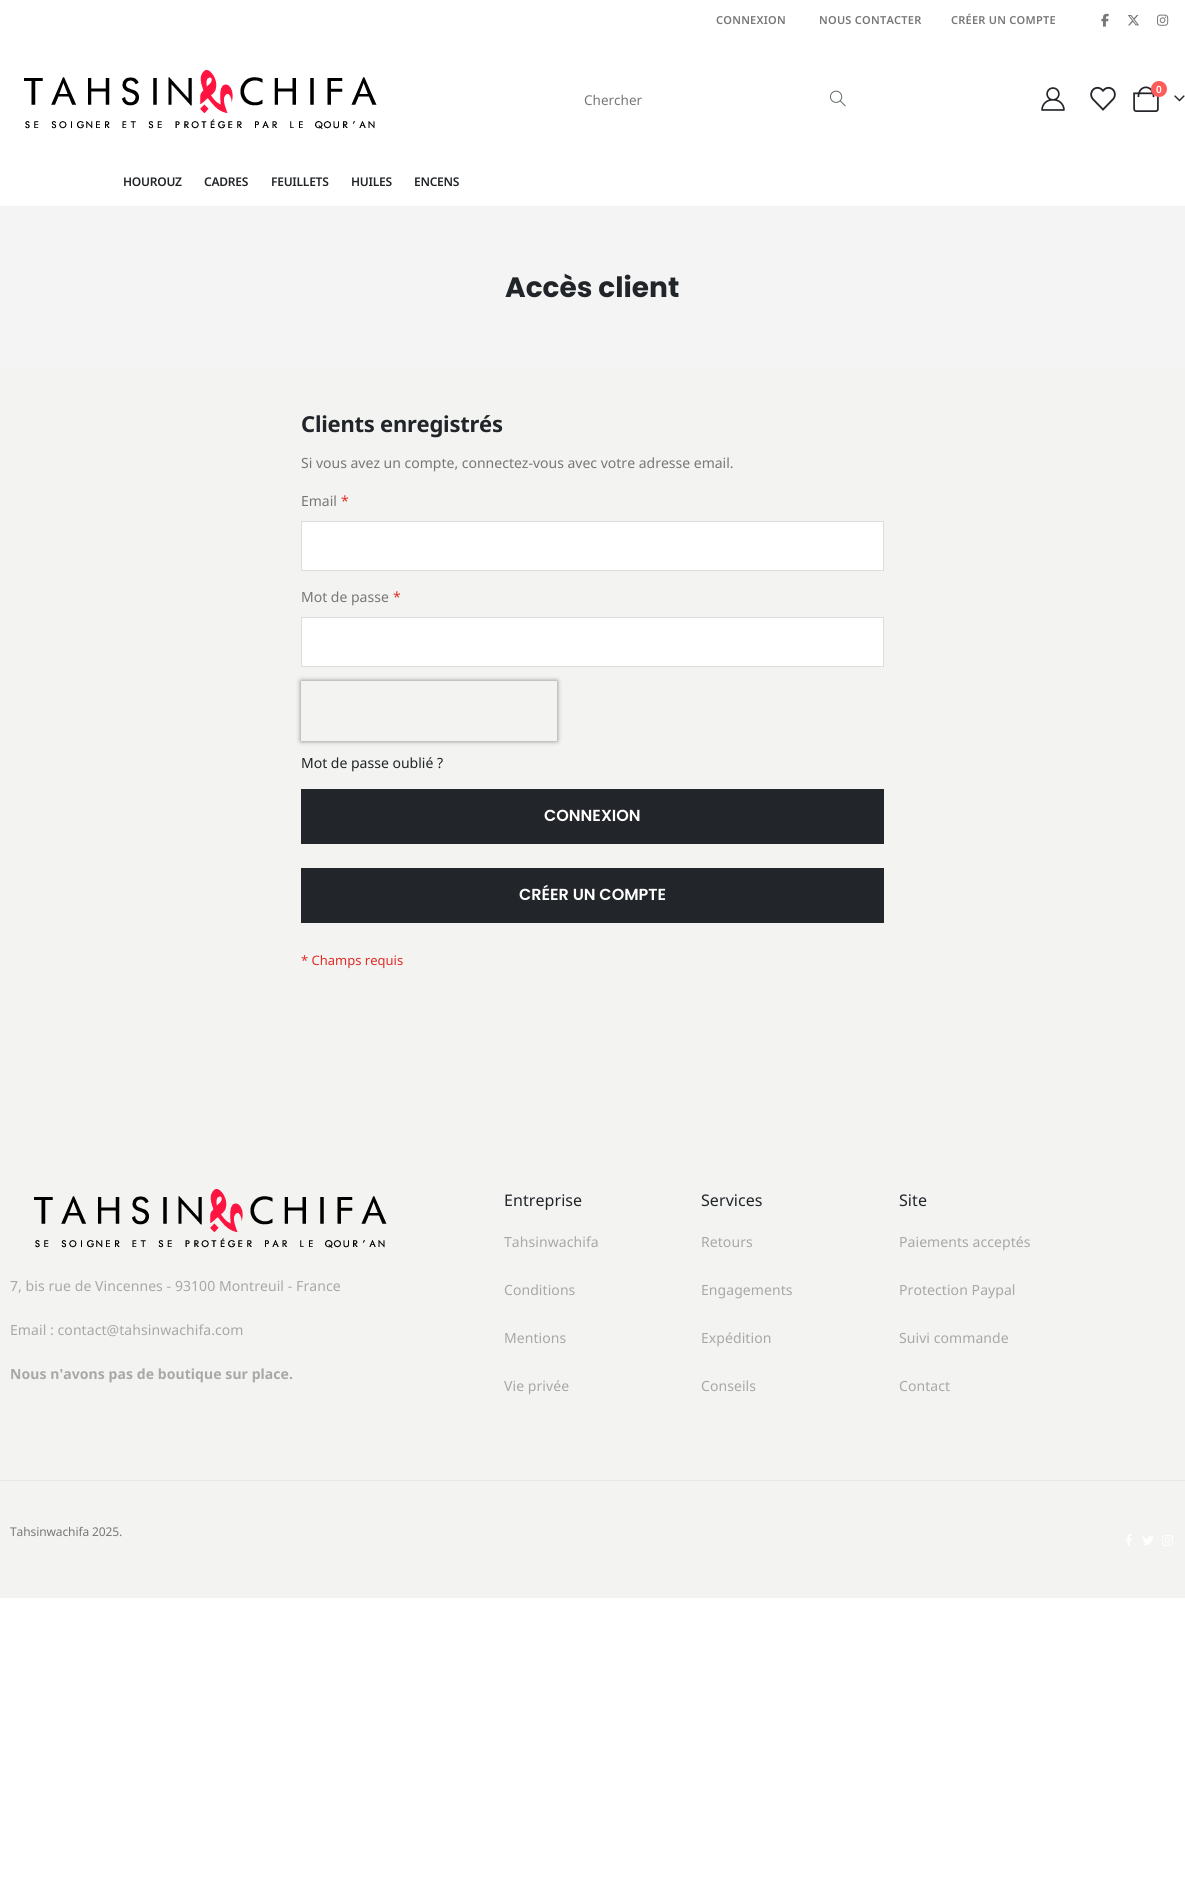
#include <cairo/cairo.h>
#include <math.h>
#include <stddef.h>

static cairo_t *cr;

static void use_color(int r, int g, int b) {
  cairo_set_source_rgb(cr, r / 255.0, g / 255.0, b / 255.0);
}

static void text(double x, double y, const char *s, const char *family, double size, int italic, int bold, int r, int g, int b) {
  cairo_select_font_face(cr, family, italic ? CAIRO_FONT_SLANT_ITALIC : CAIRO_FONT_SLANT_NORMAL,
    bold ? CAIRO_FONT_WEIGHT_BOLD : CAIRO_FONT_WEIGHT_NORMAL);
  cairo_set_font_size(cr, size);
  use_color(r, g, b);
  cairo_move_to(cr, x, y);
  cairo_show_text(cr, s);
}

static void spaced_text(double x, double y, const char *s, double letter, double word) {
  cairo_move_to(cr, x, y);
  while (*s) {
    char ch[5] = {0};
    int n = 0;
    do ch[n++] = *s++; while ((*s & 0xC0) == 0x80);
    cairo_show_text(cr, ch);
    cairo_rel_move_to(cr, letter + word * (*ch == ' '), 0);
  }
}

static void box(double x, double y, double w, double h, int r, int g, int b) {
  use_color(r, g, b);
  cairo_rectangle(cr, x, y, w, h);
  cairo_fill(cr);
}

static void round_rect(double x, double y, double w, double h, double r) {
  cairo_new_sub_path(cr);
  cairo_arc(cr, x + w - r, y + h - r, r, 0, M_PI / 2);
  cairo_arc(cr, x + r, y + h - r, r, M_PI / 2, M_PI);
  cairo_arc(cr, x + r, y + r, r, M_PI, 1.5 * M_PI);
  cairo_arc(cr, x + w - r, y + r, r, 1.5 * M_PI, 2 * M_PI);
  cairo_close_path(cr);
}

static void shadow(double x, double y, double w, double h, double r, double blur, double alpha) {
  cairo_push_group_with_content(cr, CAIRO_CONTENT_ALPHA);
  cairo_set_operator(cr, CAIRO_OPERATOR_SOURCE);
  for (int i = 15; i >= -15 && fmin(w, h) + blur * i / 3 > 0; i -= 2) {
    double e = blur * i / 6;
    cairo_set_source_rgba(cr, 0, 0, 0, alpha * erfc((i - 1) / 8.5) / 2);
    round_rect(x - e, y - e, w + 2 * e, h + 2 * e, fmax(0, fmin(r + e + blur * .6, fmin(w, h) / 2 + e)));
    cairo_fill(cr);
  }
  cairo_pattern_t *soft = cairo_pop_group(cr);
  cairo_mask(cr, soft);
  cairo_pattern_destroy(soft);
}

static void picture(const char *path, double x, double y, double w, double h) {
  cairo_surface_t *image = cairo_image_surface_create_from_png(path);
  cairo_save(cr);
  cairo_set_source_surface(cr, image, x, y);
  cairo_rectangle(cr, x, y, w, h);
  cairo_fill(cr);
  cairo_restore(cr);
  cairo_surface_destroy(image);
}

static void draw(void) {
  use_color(255, 255, 255);
  cairo_paint(cr);
  box(0, 370, 1185, 1228, 243, 243, 241);
  picture("img_01.png", 1101, 13, 8, 14);
  picture("img_02.png", 1127, 15, 12, 11);
  picture("img_03.png", 1157, 14, 12, 12);
  picture("img_04.png", 24, 70, 353, 59);
  picture("img_05.png", 1041, 87, 24, 24);
  picture("img_06.png", 1090, 86, 26, 25);
  picture("img_07.png", 1133, 86, 26, 26);
  use_color(255, 91, 91);
  cairo_arc(cr, 1159, 89, 8, 0, 2 * M_PI);
  cairo_fill(cr);
  picture("img_08.png", 1174, 95, 11, 7);
  picture("img_09.png", 830, 90, 16, 17);
  box(0, 206, 1185, 164, 244, 244, 244);
  use_color(255, 255, 255);
  cairo_rectangle(cr, 301.5, 521.5, 582, 49);
  cairo_fill_preserve(cr);
  use_color(221, 221, 219);
  cairo_set_line_width(cr, 1);
  cairo_stroke(cr);
  use_color(255, 255, 255);
  cairo_rectangle(cr, 301.5, 617.5, 582, 49);
  cairo_fill_preserve(cr);
  use_color(221, 221, 219);
  cairo_stroke(cr);
  cairo_save(cr);
  cairo_set_fill_rule(cr, CAIRO_FILL_RULE_EVEN_ODD);
  cairo_new_path(cr);
  cairo_move_to(cr, 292, 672);
  cairo_line_to(cr, 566, 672);
  cairo_line_to(cr, 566, 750);
  cairo_line_to(cr, 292, 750);
  cairo_close_path(cr);
  cairo_move_to(cr, 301, 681);
  cairo_line_to(cr, 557, 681);
  cairo_line_to(cr, 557, 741);
  cairo_line_to(cr, 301, 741);
  cairo_close_path(cr);
  cairo_clip(cr);
  use_color(128, 128, 128);
  shadow(301, 681, 256, 60, 0, 2.5, 1);
  cairo_restore(cr);
  box(301, 789, 583, 55, 34, 37, 41);
  box(301, 868, 583, 55, 34, 37, 41);
  box(0, 1480, 1185, 1, 231, 231, 231);
  picture("img_10.png", 34, 1189, 353, 59);
  picture("img_11.png", 1125, 1534, 7, 12);
  picture("img_12.png", 1143, 1536, 10, 9);
  picture("img_13.png", 1162, 1535, 11, 11);
  cairo_select_font_face(cr, "Noto Sans SemiBold", CAIRO_FONT_SLANT_NORMAL, CAIRO_FONT_WEIGHT_NORMAL);
  cairo_set_font_size(cr, 11);
  use_color(119, 119, 119);
  spaced_text(716, 24, "CONNEXION", 0.25, 0);
  spaced_text(819, 24, "NOUS CONTACTER", 0.25, 0);
  spaced_text(951, 24, "CRÉER UN COMPTE", 0.25, 0);
  text(1156, 93, "0", "Noto Sans SemiBold", 10, 0, 0, 255, 255, 255);
  text(584, 105, "Chercher", "Noto Sans", 13.5, 0, 0, 119, 119, 119);
  cairo_select_font_face(cr, "Noto Sans SemiBold", CAIRO_FONT_SLANT_NORMAL, CAIRO_FONT_WEIGHT_NORMAL);
  cairo_set_font_size(cr, 12);
  use_color(33, 37, 41);
  spaced_text(123, 186, "HOUROUZ", -0.25, 0);
  spaced_text(204, 186, "CADRES", -0.25, 0);
  spaced_text(271, 186, "FEUILLETS", -0.25, 0);
  spaced_text(351, 186, "HUILES", -0.25, 0);
  spaced_text(414, 186, "ENCENS", -0.25, 0);
  text(505, 297, "Accès client", "Poppins", 28, 0, 1, 33, 37, 41);
  cairo_select_font_face(cr, "Noto Sans", CAIRO_FONT_SLANT_NORMAL, CAIRO_FONT_WEIGHT_BOLD);
  cairo_set_font_size(cr, 22);
  spaced_text(301, 432, "Clients enregistrés", -0.25, 0);
  text(301, 468, "Si vous avez un compte, connectez-vous avec votre adresse email.", "Noto Sans", 14, 0, 0, 119, 119, 119);
  text(301, 506, "Email", "Noto Sans", 14, 0, 0, 119, 119, 119);
  text(341, 506, "*", "Noto Sans", 14, 0, 0, 224, 43, 39);
  text(301, 602, "Mot de passe", "Noto Sans", 14, 0, 0, 119, 119, 119);
  text(393, 602, "*", "Noto Sans", 14, 0, 0, 224, 43, 39);
  text(301, 768, "Mot de passe oublié ?", "Noto Sans", 14, 0, 0, 33, 37, 41);
  text(544, 821, "CONNEXION", "Poppins SemiBold", 16, 0, 0, 255, 255, 255);
  text(519, 900, "CRÉER UN COMPTE", "Poppins SemiBold", 16, 0, 0, 255, 255, 255);
  text(301, 965, "* Champs requis", "Noto Sans", 13, 0, 0, 224, 43, 39);
  cairo_set_font_size(cr, 14);
  use_color(168, 168, 168);
  spaced_text(10, 1291, "7, bis rue de Vincennes - 93100 Montreuil - France", 0.07, 0);
  spaced_text(10, 1335, "Email : contact@tahsinwachifa.com", 0.07, 0);
  cairo_select_font_face(cr, "Noto Sans", CAIRO_FONT_SLANT_NORMAL, CAIRO_FONT_WEIGHT_BOLD);
  spaced_text(10, 1379, "Nous n'avons pas de boutique sur place.", 0.07, 0);
  cairo_select_font_face(cr, "Noto Sans", CAIRO_FONT_SLANT_NORMAL, CAIRO_FONT_WEIGHT_NORMAL);
  cairo_set_font_size(cr, 16);
  use_color(33, 37, 41);
  spaced_text(504, 1206, "Entreprise", 0.07, 0);
  cairo_set_font_size(cr, 14);
  use_color(168, 168, 168);
  spaced_text(504, 1247, "Tahsinwachifa", 0.07, 0);
  spaced_text(504, 1295, "Conditions", 0.07, 0);
  spaced_text(504, 1343, "Mentions", 0.07, 0);
  spaced_text(504, 1391, "Vie privée", 0.07, 0);
  cairo_set_font_size(cr, 16);
  use_color(33, 37, 41);
  spaced_text(701, 1206, "Services", 0.07, 0);
  cairo_set_font_size(cr, 14);
  use_color(168, 168, 168);
  spaced_text(701, 1247, "Retours", 0.07, 0);
  spaced_text(701, 1295, "Engagements", 0.07, 0);
  spaced_text(701, 1343, "Expédition", 0.07, 0);
  spaced_text(701, 1391, "Conseils", 0.07, 0);
  cairo_set_font_size(cr, 16);
  use_color(33, 37, 41);
  spaced_text(899, 1206, "Site", 0.07, 0);
  cairo_set_font_size(cr, 14);
  use_color(168, 168, 168);
  spaced_text(899, 1247, "Paiements acceptés", 0.07, 0);
  spaced_text(899, 1295, "Protection Paypal", 0.07, 0);
  spaced_text(899, 1343, "Suivi commande", 0.07, 0);
  spaced_text(899, 1391, "Contact", 0.07, 0);
  cairo_set_font_size(cr, 12);
  use_color(119, 119, 119);
  spaced_text(10, 1536, "Tahsinwachifa 2025.", -0.1, 0);
}

int main(void) {
  cairo_surface_t *surface = cairo_image_surface_create(CAIRO_FORMAT_RGB24, 1185, 1881);
  cr = cairo_create(surface);
  cairo_font_options_t *options = cairo_font_options_create();
  cairo_font_options_set_hint_metrics(options, CAIRO_HINT_METRICS_OFF);
  cairo_font_options_set_hint_style(options, CAIRO_HINT_STYLE_NONE);
  cairo_set_font_options(cr, options);
  cairo_set_miter_limit(cr, 4);
  draw();
  cairo_surface_write_to_png(surface, "out.png");
  cairo_font_options_destroy(options);
  cairo_destroy(cr);
  cairo_surface_destroy(surface);
  return 0;
}
